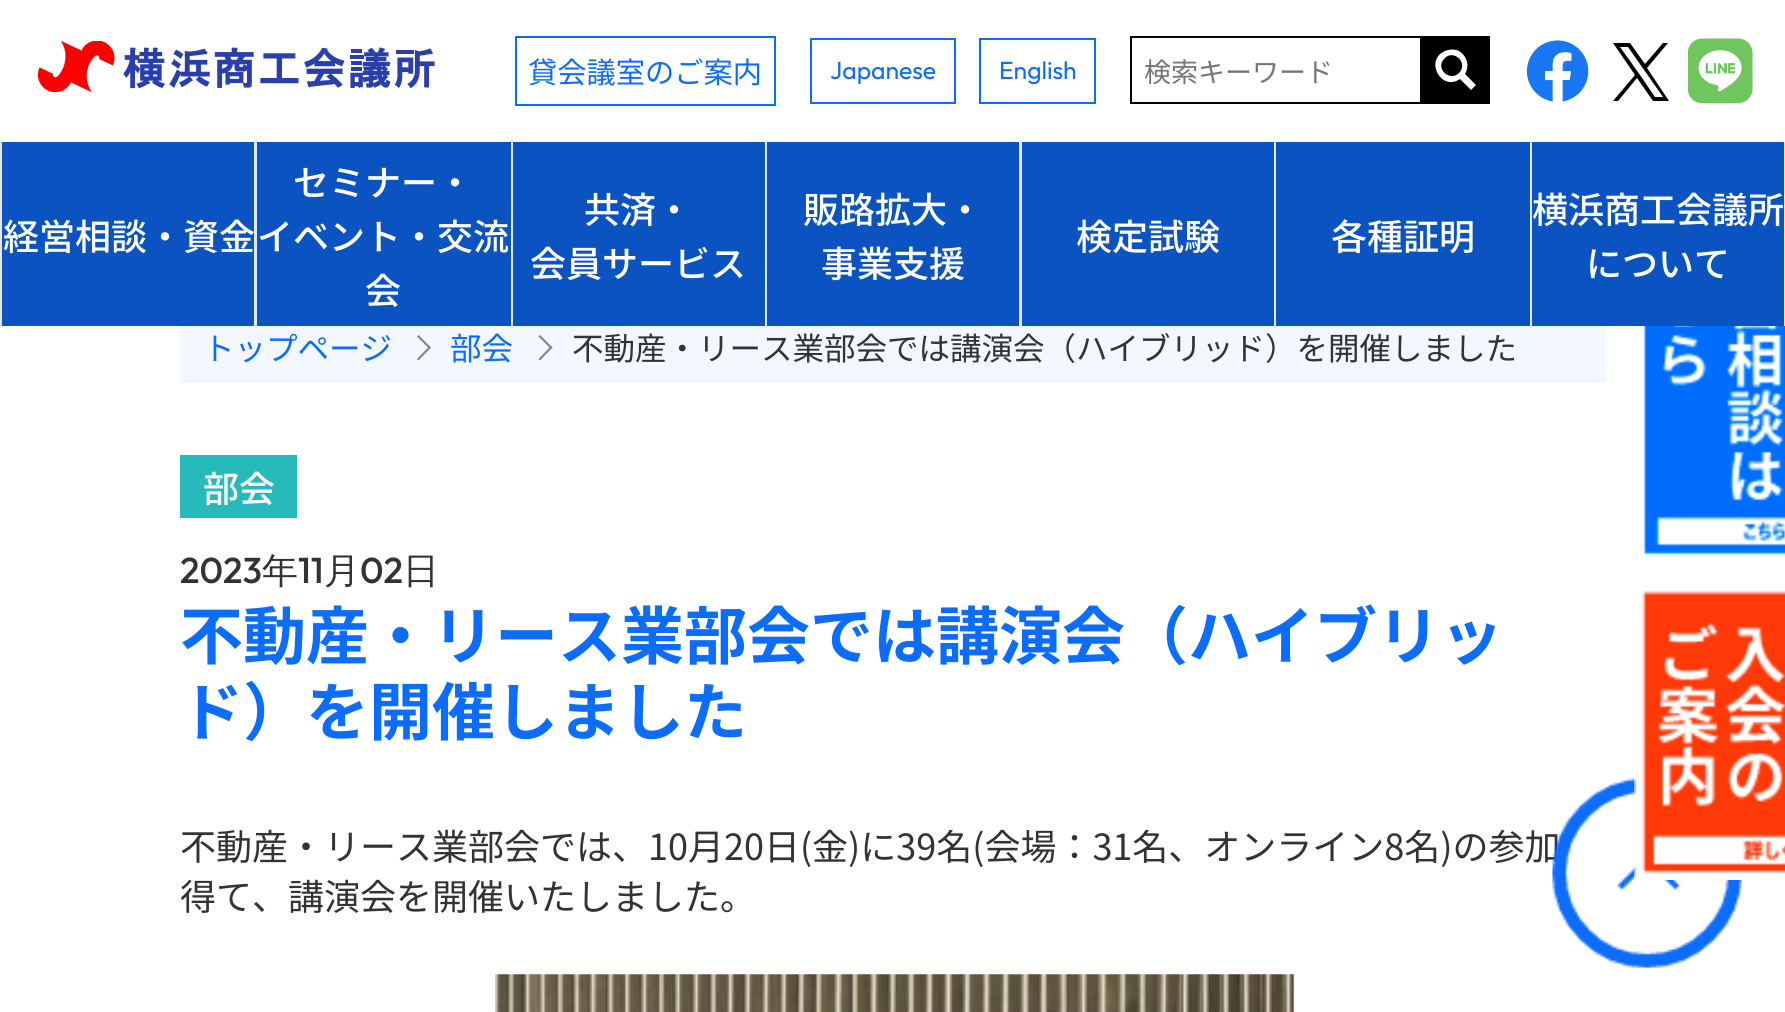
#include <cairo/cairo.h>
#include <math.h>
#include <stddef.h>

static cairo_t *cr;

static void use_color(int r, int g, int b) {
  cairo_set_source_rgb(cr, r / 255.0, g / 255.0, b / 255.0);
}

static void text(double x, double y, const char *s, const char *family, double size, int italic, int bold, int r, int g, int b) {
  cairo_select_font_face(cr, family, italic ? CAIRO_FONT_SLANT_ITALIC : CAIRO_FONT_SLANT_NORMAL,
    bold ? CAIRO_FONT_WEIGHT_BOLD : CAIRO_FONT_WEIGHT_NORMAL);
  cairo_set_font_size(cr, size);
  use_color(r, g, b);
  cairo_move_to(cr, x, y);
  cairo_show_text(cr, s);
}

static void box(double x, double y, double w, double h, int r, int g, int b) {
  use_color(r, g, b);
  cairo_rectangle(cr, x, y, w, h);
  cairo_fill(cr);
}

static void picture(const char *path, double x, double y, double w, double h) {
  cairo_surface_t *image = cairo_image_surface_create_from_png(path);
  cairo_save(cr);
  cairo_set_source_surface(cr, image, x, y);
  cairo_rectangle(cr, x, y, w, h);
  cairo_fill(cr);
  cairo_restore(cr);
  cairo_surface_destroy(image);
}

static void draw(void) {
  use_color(255, 255, 255);
  cairo_paint(cr);
  picture("img_01.png", 38, 41, 397, 51);
  cairo_rectangle(cr, 516, 37, 259, 68);
  use_color(12, 109, 253);
  cairo_stroke(cr);
  cairo_rectangle(cr, 811, 39, 144, 64);
  cairo_stroke(cr);
  cairo_rectangle(cr, 980, 39, 115, 64);
  cairo_stroke(cr);
  cairo_rectangle(cr, 1131, 37, 290, 66);
  use_color(0, 0, 0);
  cairo_stroke(cr);
  box(1422, 36, 68, 68, 0, 0, 0);
  use_color(255, 255, 255);
  cairo_new_path(cr);
  cairo_move_to(cr, 1465, 74);
  cairo_curve_to(cr, 1470, 66, 1467, 56, 1459, 51);
  cairo_curve_to(cr, 1455, 49, 1450, 49, 1445, 51);
  cairo_curve_to(cr, 1424, 60, 1441, 92, 1460, 79);
  cairo_line_to(cr, 1471, 90);
  cairo_line_to(cr, 1476, 85);
  cairo_close_path(cr);
  cairo_move_to(cr, 1459, 73);
  cairo_curve_to(cr, 1450, 82, 1435, 69, 1444, 59);
  cairo_curve_to(cr, 1453, 48, 1469, 63, 1459, 73);
  cairo_fill(cr);
  picture("img_02.png", 1526, 40, 63, 62);
  use_color(1, 0, 1);
  cairo_new_path(cr);
  cairo_move_to(cr, 1640, 75);
  cairo_line_to(cr, 1620, 47);
  cairo_line_to(cr, 1628, 47);
  cairo_line_to(cr, 1663, 97);
  cairo_line_to(cr, 1655, 97);
  cairo_close_path(cr);
  cairo_move_to(cr, 1663, 43);
  cairo_line_to(cr, 1645, 64);
  cairo_line_to(cr, 1630, 43);
  cairo_line_to(cr, 1613, 43);
  cairo_line_to(cr, 1635, 75);
  cairo_line_to(cr, 1613, 101);
  cairo_line_to(cr, 1618, 101);
  cairo_line_to(cr, 1637, 78);
  cairo_line_to(cr, 1653, 101);
  cairo_line_to(cr, 1669, 101);
  cairo_line_to(cr, 1647, 68);
  cairo_line_to(cr, 1668, 43);
  cairo_close_path(cr);
  cairo_fill(cr);
  picture("img_03.png", 1688, 38, 65, 66);
  box(254, 142, 1278, 184, 224, 236, 253);
  box(1784, 142, 1, 184, 229, 229, 229);
  box(0, 142, 2, 184, 229, 229, 229);
  box(2, 142, 252, 184, 10, 83, 193);
  box(257, 142, 254, 184, 10, 83, 193);
  box(513, 142, 252, 184, 10, 83, 193);
  box(767, 142, 252, 184, 10, 83, 193);
  box(1022, 142, 252, 184, 10, 83, 193);
  box(1276, 142, 254, 184, 10, 83, 193);
  box(1532, 142, 252, 184, 10, 83, 193);
  box(180, 326, 1427, 57, 243, 248, 255);
  use_color(132, 132, 132);
  cairo_new_path(cr);
  cairo_move_to(cr, 418.5, 335);
  cairo_line_to(cr, 431, 347.5);
  cairo_line_to(cr, 429.5, 349);
  cairo_line_to(cr, 417, 336.5);
  cairo_close_path(cr);
  cairo_fill(cr);
  cairo_new_path(cr);
  cairo_move_to(cr, 429.5, 346);
  cairo_line_to(cr, 431, 347.5);
  cairo_line_to(cr, 418.5, 360.5);
  cairo_line_to(cr, 417, 359);
  cairo_close_path(cr);
  cairo_fill(cr);
  cairo_new_path(cr);
  cairo_move_to(cr, 540, 335);
  cairo_line_to(cr, 552.5, 347.5);
  cairo_line_to(cr, 551, 349);
  cairo_line_to(cr, 538.5, 336.5);
  cairo_close_path(cr);
  cairo_fill(cr);
  cairo_new_path(cr);
  cairo_move_to(cr, 551, 346);
  cairo_line_to(cr, 552.5, 347.5);
  cairo_line_to(cr, 540, 360.5);
  cairo_line_to(cr, 538.5, 359);
  cairo_close_path(cr);
  cairo_fill(cr);
  box(180, 455, 117, 63, 38, 186, 186);
  picture("img_04.png", 495, 974, 799, 38);
  picture("img_05.png", 1643, 326, 142, 229);
  text(528, 83, "貸会議室のご案内", "Noto Sans JP", 29.25, 0, 0, 12, 109, 253);
  text(830, 79, "Japanese", "Outfit", 24.75, 0, 0, 12, 109, 253);
  text(999, 79, "English", "Outfit", 24.75, 0, 0, 12, 109, 253);
  text(1144, 82, "検索キーワード", "Noto Sans JP", 27, 0, 0, 117, 117, 117);
  text(3, 250, "経営相談・資金", "Noto Sans JP Medium", 36, 0, 0, 255, 255, 255);
  text(293, 196, "セミナー・", "Noto Sans JP Medium", 36, 0, 0, 255, 255, 255);
  text(257, 250, "イベント・交流", "Noto Sans JP Medium", 36, 0, 0, 255, 255, 255);
  text(365, 304, "会", "Noto Sans JP Medium", 36, 0, 0, 255, 255, 255);
  text(584, 223, "共済・", "Noto Sans JP Medium", 36, 0, 0, 255, 255, 255);
  text(530, 277, "会員サービス", "Noto Sans JP Medium", 36, 0, 0, 255, 255, 255);
  text(803, 223, "販路拡大・", "Noto Sans JP Medium", 36, 0, 0, 255, 255, 255);
  text(821, 277, "事業支援", "Noto Sans JP Medium", 36, 0, 0, 255, 255, 255);
  text(1076, 250, "検定試験", "Noto Sans JP Medium", 36, 0, 0, 255, 255, 255);
  text(1331, 250, "各種証明", "Noto Sans JP Medium", 36, 0, 0, 255, 255, 255);
  text(1532, 223, "横浜商工会議所", "Noto Sans JP Medium", 36, 0, 0, 255, 255, 255);
  text(1586, 277, "について", "Noto Sans JP Medium", 36, 0, 0, 255, 255, 255);
  text(203, 360, "トップページ", "Noto Sans JP", 31.5, 0, 0, 12, 109, 253);
  text(450, 360, "部会", "Noto Sans JP", 31.5, 0, 0, 12, 109, 253);
  text(572, 360, "不動産・リース業部会では講演会（ハイブリッド）を開催しました", "Noto Sans JP", 31.5, 0, 0, 51, 51, 51);
  text(203, 502, "部会", "Noto Sans JP Medium", 36, 0, 0, 255, 255, 255);
  text(180, 583, "2023", "Outfit Medium", 36, 0, 0, 51, 51, 51);
  text(262, 583, "年", "WenQuanYi Zen Hei Medium", 36, 0, 0, 51, 51, 51);
  text(298, 583, "11", "Outfit Medium", 36, 0, 0, 51, 51, 51);
  text(324, 583, "月", "WenQuanYi Zen Hei Medium", 36, 0, 0, 51, 51, 51);
  text(360, 583, "02", "Outfit Medium", 36, 0, 0, 51, 51, 51);
  text(403, 583, "日", "WenQuanYi Zen Hei Medium", 36, 0, 0, 51, 51, 51);
  text(180, 659, "不動産・リース業部会では講演会（ハイブリッ", "Noto Sans JP", 63, 0, 1, 12, 109, 253);
  text(180, 735, "ド）を開催しました", "Noto Sans JP", 63, 0, 1, 12, 109, 253);
  text(180, 860, "不動産・リース業部会では、10月20日(金)に39名(会場：31名、オンライン8名)の参加", "Noto Sans JP", 36, 0, 0, 51, 51, 51);
  text(180, 910, "得て、講演会を開催いたしました。", "Noto Sans JP", 36, 0, 0, 51, 51, 51);
  picture("img_07.png", 1552, 778, 190, 190);
  picture("img_06.png", 1634, 590, 151, 290);
}

int main(void) {
  cairo_surface_t *surface = cairo_image_surface_create(CAIRO_FORMAT_RGB24, 1785, 1012);
  cr = cairo_create(surface);
  cairo_font_options_t *options = cairo_font_options_create();
  cairo_font_options_set_hint_metrics(options, CAIRO_HINT_METRICS_OFF);
  cairo_font_options_set_hint_style(options, CAIRO_HINT_STYLE_NONE);
  cairo_set_font_options(cr, options);
  cairo_set_miter_limit(cr, 4);
  draw();
  cairo_surface_write_to_png(surface, "out.png");
  cairo_font_options_destroy(options);
  cairo_destroy(cr);
  cairo_surface_destroy(surface);
  return 0;
}
